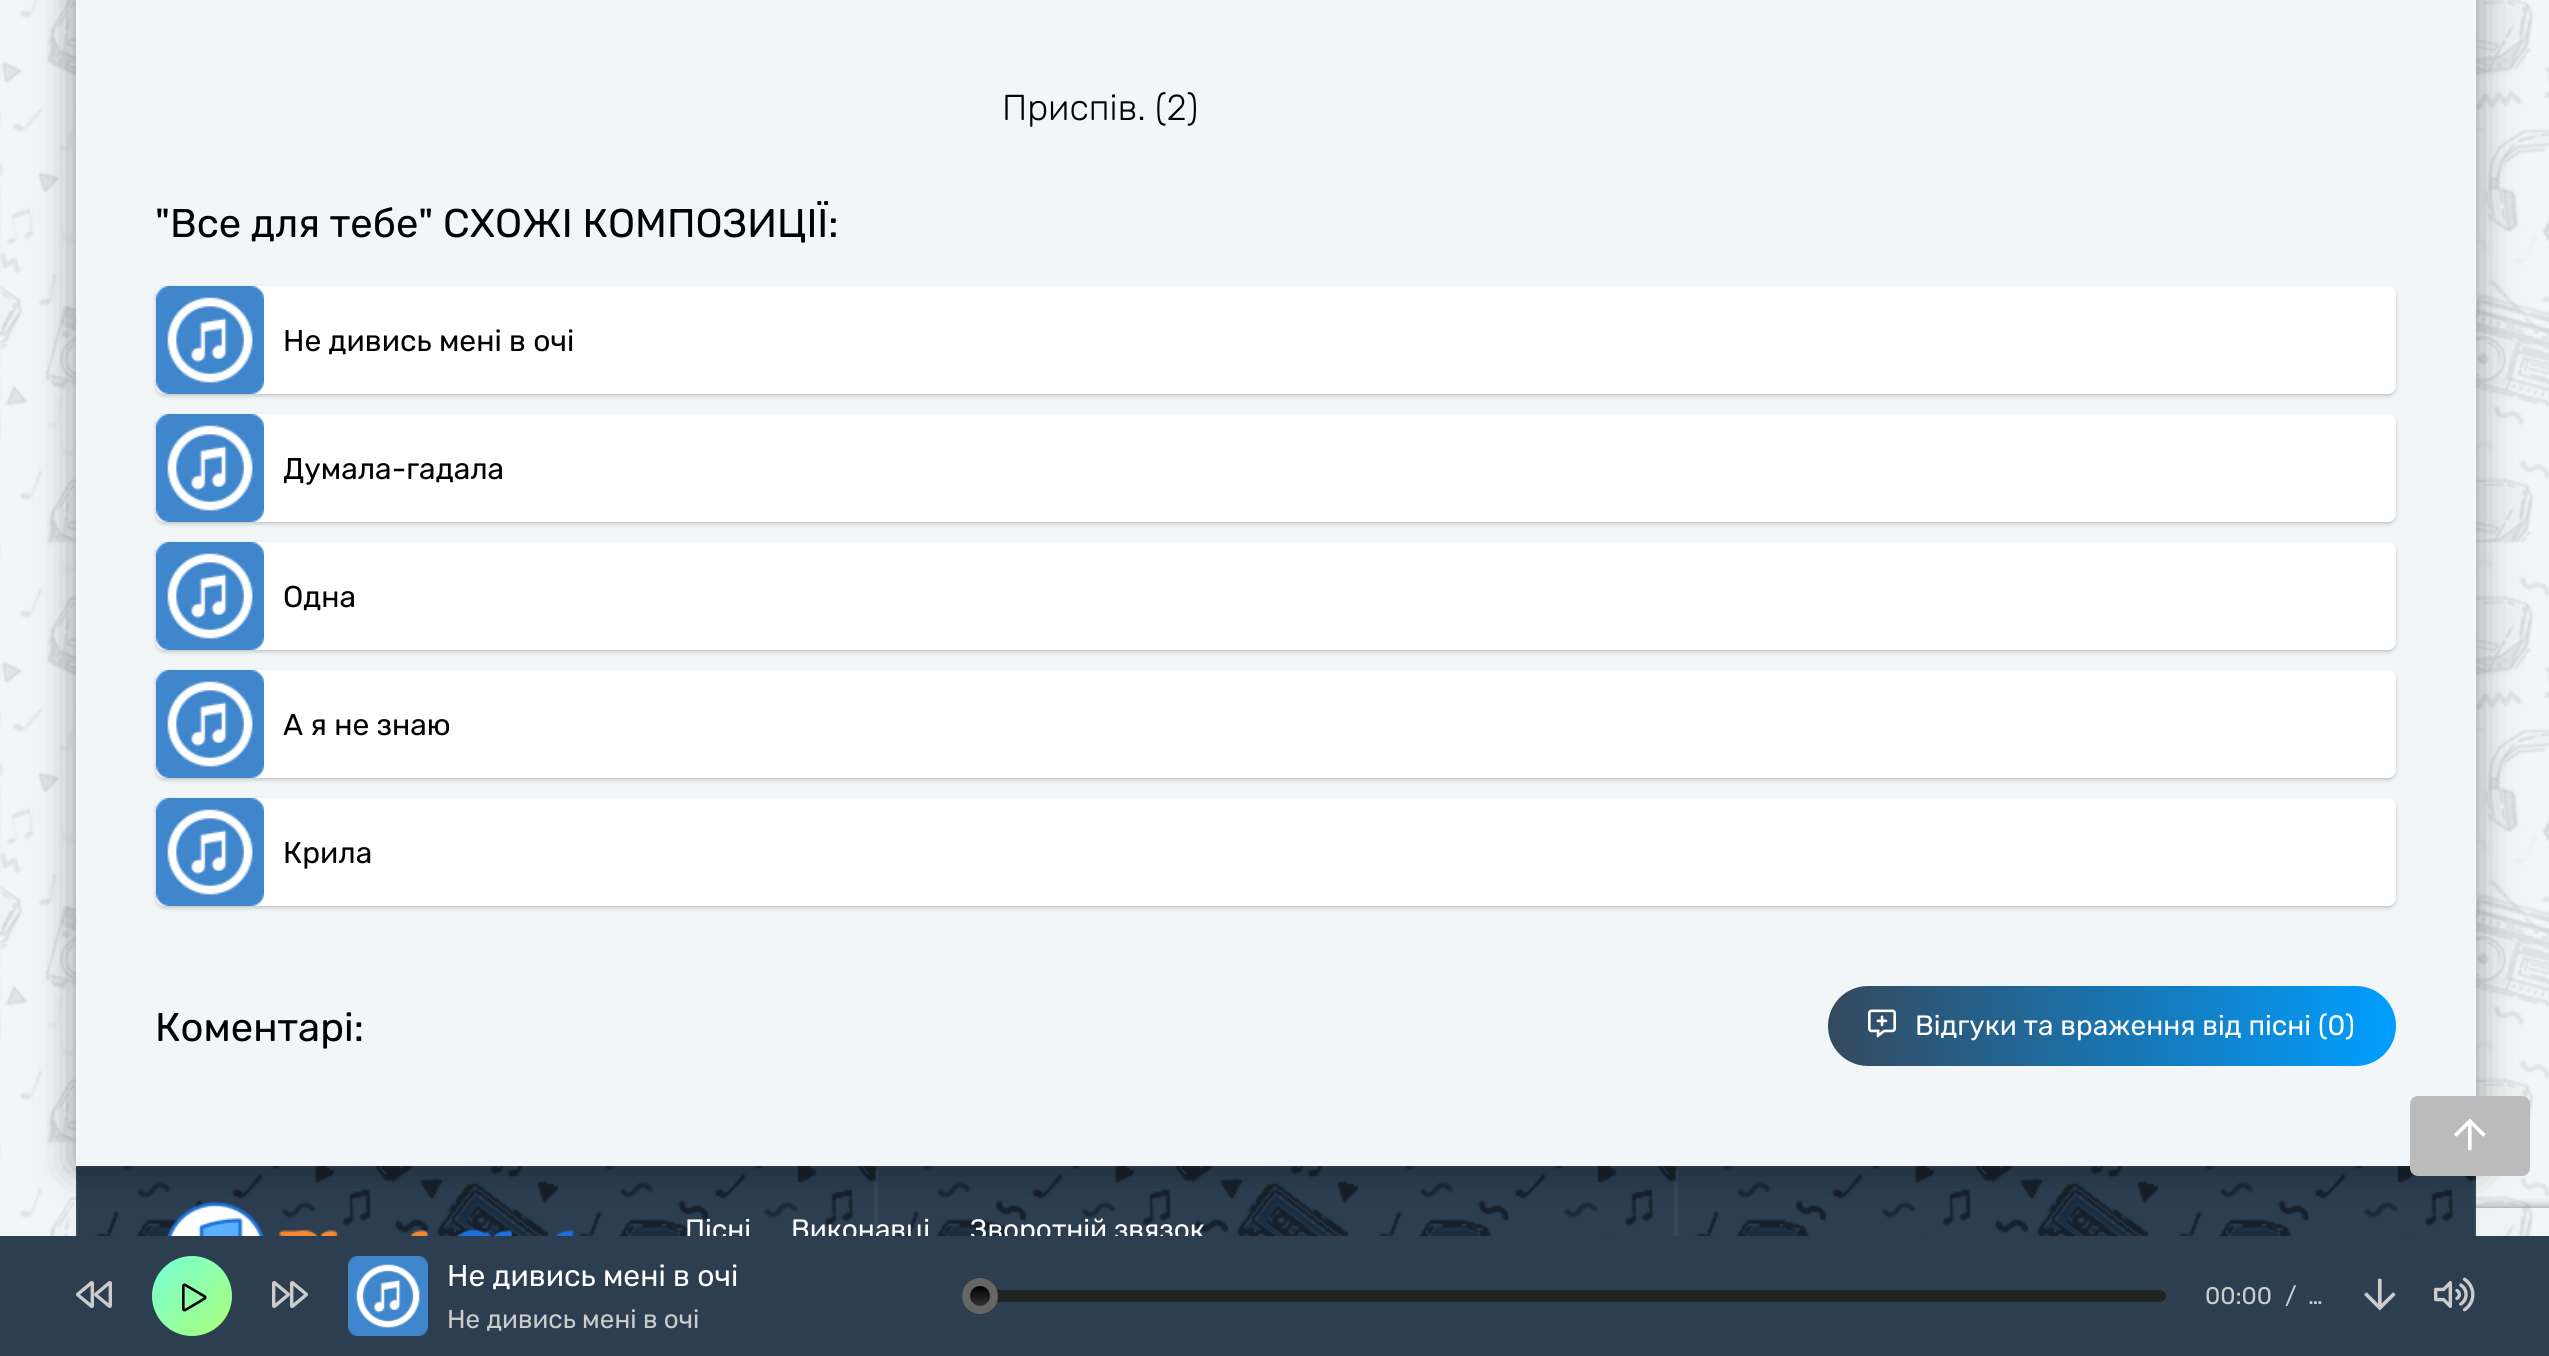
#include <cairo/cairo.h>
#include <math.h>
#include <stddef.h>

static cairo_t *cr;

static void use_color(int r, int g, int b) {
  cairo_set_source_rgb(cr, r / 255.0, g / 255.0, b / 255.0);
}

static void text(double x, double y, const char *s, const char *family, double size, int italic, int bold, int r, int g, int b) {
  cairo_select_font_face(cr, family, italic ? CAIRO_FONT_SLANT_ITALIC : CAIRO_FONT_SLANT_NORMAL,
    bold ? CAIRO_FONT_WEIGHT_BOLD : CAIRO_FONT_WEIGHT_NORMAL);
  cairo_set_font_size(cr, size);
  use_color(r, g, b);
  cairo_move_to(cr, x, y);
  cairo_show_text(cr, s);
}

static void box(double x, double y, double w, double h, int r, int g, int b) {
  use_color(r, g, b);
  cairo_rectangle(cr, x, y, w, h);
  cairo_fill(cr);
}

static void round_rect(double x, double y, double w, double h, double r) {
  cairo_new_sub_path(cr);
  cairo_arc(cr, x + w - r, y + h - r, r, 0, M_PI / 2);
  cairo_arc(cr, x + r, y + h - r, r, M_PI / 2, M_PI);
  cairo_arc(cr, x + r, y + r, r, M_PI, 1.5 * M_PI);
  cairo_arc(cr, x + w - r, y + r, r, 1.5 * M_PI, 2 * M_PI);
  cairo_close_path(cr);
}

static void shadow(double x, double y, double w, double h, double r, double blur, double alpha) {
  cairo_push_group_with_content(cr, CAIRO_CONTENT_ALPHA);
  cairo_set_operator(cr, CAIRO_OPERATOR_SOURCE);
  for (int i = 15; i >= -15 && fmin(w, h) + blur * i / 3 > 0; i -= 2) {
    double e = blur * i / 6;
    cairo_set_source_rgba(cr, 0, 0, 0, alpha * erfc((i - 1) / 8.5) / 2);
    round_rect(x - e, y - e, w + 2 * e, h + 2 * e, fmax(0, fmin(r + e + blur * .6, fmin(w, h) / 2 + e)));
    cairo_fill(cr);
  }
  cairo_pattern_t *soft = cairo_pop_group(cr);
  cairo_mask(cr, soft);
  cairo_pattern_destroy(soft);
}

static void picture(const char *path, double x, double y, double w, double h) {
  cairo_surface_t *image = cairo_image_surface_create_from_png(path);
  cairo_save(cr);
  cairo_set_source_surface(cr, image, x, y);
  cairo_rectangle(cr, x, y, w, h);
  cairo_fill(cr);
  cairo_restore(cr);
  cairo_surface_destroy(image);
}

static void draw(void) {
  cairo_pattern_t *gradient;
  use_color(255, 255, 255);
  cairo_paint(cr);
  picture("img_01.png", 0, 0, 2549, 1236);
  cairo_save(cr);
  cairo_rectangle(cr, 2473, 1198, 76, 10);
  cairo_clip(cr);
  use_color(128, 128, 128);
  shadow(2410, 1208, 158, 120, 4, 5, 1);
  cairo_restore(cr);
  picture("img_05.png", 76, 1166, 2400, 70);
  picture("img_06.png", 166, 1201, 409, 35);
  use_color(0, 0, 0);
  shadow(76, -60, 2400, 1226, 0, 20, 0.4);
  box(76, 0, 2400, 1166, 242, 246, 248);
  use_color(0, 0, 0);
  shadow(156, 288, 2240, 108, 8, 2, 0.2);
  use_color(255, 255, 255);
  round_rect(156, 286, 2240, 108, 8);
  cairo_fill(cr);
  picture("img_02.png", 156, 286, 108, 108);
  use_color(0, 0, 0);
  shadow(156, 416, 2240, 108, 8, 2, 0.2);
  use_color(255, 255, 255);
  round_rect(156, 414, 2240, 108, 8);
  cairo_fill(cr);
  picture("img_03.png", 156, 414, 108, 108);
  use_color(0, 0, 0);
  shadow(156, 544, 2240, 108, 8, 2, 0.2);
  use_color(255, 255, 255);
  round_rect(156, 542, 2240, 108, 8);
  cairo_fill(cr);
  picture("img_03.png", 156, 542, 108, 108);
  use_color(0, 0, 0);
  shadow(156, 672, 2240, 108, 8, 2, 0.2);
  use_color(255, 255, 255);
  round_rect(156, 670, 2240, 108, 8);
  cairo_fill(cr);
  picture("img_03.png", 156, 670, 108, 108);
  use_color(0, 0, 0);
  shadow(156, 800, 2240, 108, 8, 2, 0.2);
  use_color(255, 255, 255);
  round_rect(156, 798, 2240, 108, 8);
  cairo_fill(cr);
  picture("img_03.png", 156, 798, 108, 108);
  gradient = cairo_pattern_create_linear(1828, 1026, 2396, 1026);
  cairo_pattern_add_color_stop_rgba(gradient, 0, 0.204, 0.286, 0.369, 1);
  cairo_pattern_add_color_stop_rgba(gradient, 1, 0, 0.624, 1, 1);
  cairo_set_source(cr, gradient);
  cairo_pattern_destroy(gradient);
  round_rect(1828, 986, 568, 80, 40);
  cairo_fill(cr);
  picture("img_04.png", 1868, 1009, 28, 29);
  use_color(187, 187, 187);
  round_rect(2410, 1096, 120, 80, 8);
  cairo_fill(cr);
  picture("img_07.png", 2454, 1118, 32, 33);
  text(1002, 120, "Приспів. (2)", "Rubik Light", 36, 0, 0, 1, 1, 1);
  text(155, 237, "\"Все для тебе\" СХОЖІ КОМПОЗИЦІЇ:", "Rubik", 40, 0, 0, 1, 1, 1);
  text(283, 351, "Не дивись мені в очі", "Rubik", 30, 0, 0, 1, 1, 1);
  cairo_save(cr);
  cairo_rectangle(cr, 284, 450, 2092, 36);
  cairo_clip(cr);
  text(283, 479, "Думала-гадала", "Rubik", 30, 0, 0, 1, 1, 1);
  cairo_restore(cr);
  text(283, 607, "Одна", "Rubik", 30, 0, 0, 1, 1, 1);
  text(283, 735, "А я не знаю", "Rubik", 30, 0, 0, 1, 1, 1);
  text(283, 863, "Крила", "Rubik", 30, 0, 0, 1, 1, 1);
  text(155, 1041, "Коментарi:", "Rubik", 40, 0, 0, 1, 1, 1);
  text(1915, 1035, "Вiдгуки та враження вiд пiснi (0)", "Rubik", 28, 0, 0, 255, 255, 255);
  text(685, 1239, "Пісні", "Rubik", 28, 0, 0, 255, 255, 255);
  text(791, 1239, "Виконавці", "Rubik", 28, 0, 0, 255, 255, 255);
  text(970, 1239, "Зворотній звязок", "Rubik", 28, 0, 0, 255, 255, 255);
  box(0, 1236, 2549, 120, 44, 62, 80);
  picture("img_08.png", 76, 1281, 36, 27);
  gradient = cairo_pattern_create_linear(152, 1256, 232, 1336);
  cairo_pattern_add_color_stop_rgba(gradient, 0, 0.471, 1, 0.839, 1);
  cairo_pattern_add_color_stop_rgba(gradient, 1, 0.659, 1, 0.471, 1);
  cairo_set_source(cr, gradient);
  cairo_pattern_destroy(gradient);
  cairo_arc(cr, 192, 1296, 40, 0, 2 * M_PI);
  cairo_fill(cr);
  picture("img_09.png", 182, 1283, 25, 29);
  picture("img_10.png", 272, 1281, 36, 27);
  picture("img_11.png", 348, 1256, 80, 80);
  text(447, 1286, "Не дивись мені в очі", "Rubik", 30, 0, 0, 255, 255, 255);
  text(447, 1328, "Не дивись мені в очі", "Rubik", 26, 0, 0, 204, 204, 204);
  use_color(34, 34, 34);
  round_rect(966, 1290, 1200, 12, 6);
  cairo_fill(cr);
  cairo_save(cr);
  round_rect(962, 1278, 36, 36, 18);
  cairo_clip(cr);
  gradient = cairo_pattern_create_linear(980, 1286, 980, 1306);
  cairo_pattern_add_color_stop_rgba(gradient, 0, 0, 0, 0, 1);
  cairo_pattern_add_color_stop_rgba(gradient, 1, 0.2, 0.2, 0.2, 1);
  cairo_set_source(cr, gradient);
  cairo_pattern_destroy(gradient);
  cairo_rectangle(cr, 962, 1286, 36, 20);
  cairo_fill(cr);
  cairo_restore(cr);
  cairo_arc(cr, 980, 1296, 14, 0, 2 * M_PI);
  use_color(102, 102, 102);
  cairo_set_line_width(cr, 8);
  cairo_stroke(cr);
  text(2205, 1304, "00:00", "Rubik", 24, 0, 0, 204, 204, 204);
  text(2285, 1304, "/", "Rubik", 24, 0, 0, 204, 204, 204);
  text(2308, 1304, "…", "Rubik", 24, 0, 0, 204, 204, 204);
  picture("img_12.png", 2364, 1278, 32, 33);
  picture("img_13.png", 2434, 1277, 41, 35);
}

int main(void) {
  cairo_surface_t *surface = cairo_image_surface_create(CAIRO_FORMAT_RGB24, 2549, 1356);
  cr = cairo_create(surface);
  cairo_font_options_t *options = cairo_font_options_create();
  cairo_font_options_set_hint_metrics(options, CAIRO_HINT_METRICS_OFF);
  cairo_font_options_set_hint_style(options, CAIRO_HINT_STYLE_NONE);
  cairo_set_font_options(cr, options);
  cairo_set_miter_limit(cr, 4);
  draw();
  cairo_surface_write_to_png(surface, "out.png");
  cairo_font_options_destroy(options);
  cairo_destroy(cr);
  cairo_surface_destroy(surface);
  return 0;
}
